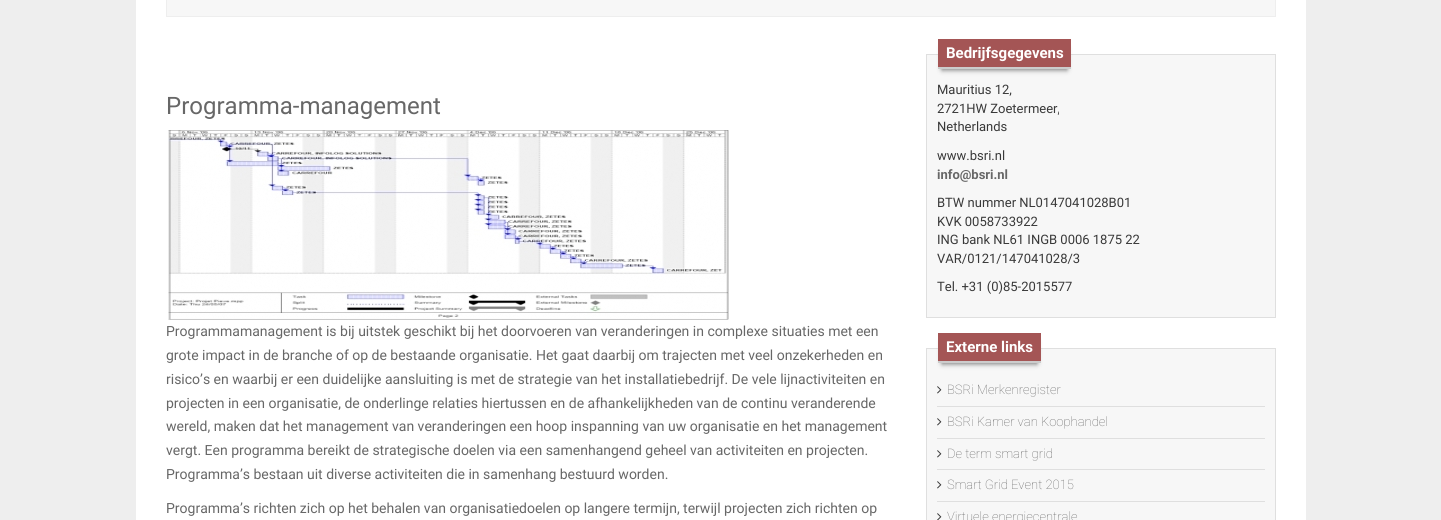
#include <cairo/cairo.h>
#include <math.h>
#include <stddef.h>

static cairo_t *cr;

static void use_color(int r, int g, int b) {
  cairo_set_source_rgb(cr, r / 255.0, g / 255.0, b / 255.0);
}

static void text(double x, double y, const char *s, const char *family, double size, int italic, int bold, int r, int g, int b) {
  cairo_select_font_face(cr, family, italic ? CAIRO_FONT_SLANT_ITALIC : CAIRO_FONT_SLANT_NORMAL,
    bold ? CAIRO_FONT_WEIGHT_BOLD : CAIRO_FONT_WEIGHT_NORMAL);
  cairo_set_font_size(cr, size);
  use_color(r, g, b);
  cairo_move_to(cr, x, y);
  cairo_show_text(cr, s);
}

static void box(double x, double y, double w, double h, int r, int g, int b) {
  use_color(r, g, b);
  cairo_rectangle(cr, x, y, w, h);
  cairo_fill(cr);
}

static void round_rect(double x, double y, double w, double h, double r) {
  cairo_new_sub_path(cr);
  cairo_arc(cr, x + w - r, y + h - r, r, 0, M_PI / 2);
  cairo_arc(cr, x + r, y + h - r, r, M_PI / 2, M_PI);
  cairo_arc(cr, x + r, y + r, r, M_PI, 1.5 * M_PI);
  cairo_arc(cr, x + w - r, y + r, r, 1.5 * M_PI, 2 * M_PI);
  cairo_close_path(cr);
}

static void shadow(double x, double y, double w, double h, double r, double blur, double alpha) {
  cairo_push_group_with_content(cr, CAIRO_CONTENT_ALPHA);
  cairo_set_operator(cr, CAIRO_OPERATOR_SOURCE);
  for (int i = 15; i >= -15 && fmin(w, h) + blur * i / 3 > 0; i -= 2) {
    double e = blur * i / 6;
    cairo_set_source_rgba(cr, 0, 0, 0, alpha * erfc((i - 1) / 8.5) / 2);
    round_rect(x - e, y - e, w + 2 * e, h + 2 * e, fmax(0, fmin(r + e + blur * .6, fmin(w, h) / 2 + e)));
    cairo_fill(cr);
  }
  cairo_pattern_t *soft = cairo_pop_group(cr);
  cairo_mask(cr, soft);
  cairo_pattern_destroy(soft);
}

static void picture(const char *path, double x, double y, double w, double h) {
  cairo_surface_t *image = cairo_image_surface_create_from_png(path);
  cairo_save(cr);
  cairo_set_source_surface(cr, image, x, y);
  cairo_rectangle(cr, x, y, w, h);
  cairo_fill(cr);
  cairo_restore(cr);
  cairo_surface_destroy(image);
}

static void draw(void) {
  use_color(238, 238, 238);
  cairo_paint(cr);
  box(136, 0, 1170, 520, 255, 255, 255);
  use_color(247, 247, 247);
  cairo_rectangle(cr, 166.5, -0.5, 1109, 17);
  cairo_fill_preserve(cr);
  use_color(238, 238, 238);
  cairo_set_line_width(cr, 1);
  cairo_stroke(cr);
  picture("img_01.png", 168, 130, 561, 190);
  use_color(247, 247, 247);
  cairo_rectangle(cr, 926.5, 54.5, 349, 263);
  cairo_fill_preserve(cr);
  use_color(223, 223, 223);
  cairo_stroke(cr);
  use_color(119, 119, 119);
  shadow(942, 48, 125, 22, 0, 2.5, 1);
  box(938, 39, 133, 28, 164, 85, 85);
  box(938, 67, 133, 2, 204, 204, 204);
  use_color(247, 247, 247);
  cairo_rectangle(cr, 926.5, 348.5, 349, 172);
  cairo_fill_preserve(cr);
  use_color(223, 223, 223);
  cairo_stroke(cr);
  use_color(119, 119, 119);
  shadow(942, 342, 95, 22, 0, 2.5, 1);
  box(938, 333, 103, 28, 164, 85, 85);
  box(938, 361, 103, 2, 204, 204, 204);
  box(937, 406, 328, 1, 223, 223, 223);
  picture("img_02.png", 937, 386, 5, 8);
  box(937, 438, 328, 1, 223, 223, 223);
  picture("img_02.png", 937, 418, 5, 8);
  box(937, 469, 328, 1, 223, 223, 223);
  picture("img_02.png", 937, 450, 5, 8);
  box(937, 501, 328, 1, 223, 223, 223);
  picture("img_02.png", 937, 481, 5, 8);
  picture("img_03.png", 937, 513, 5, 7);
  text(166, 114, "Programma-management", "Roboto", 24, 0, 0, 103, 103, 103);
  text(166, 336, "Programmamanagement is bij uitstek geschikt bij het doorvoeren van veranderingen in complexe situaties met een", "Roboto", 14, 0, 0, 103, 103, 103);
  text(166, 360, "grote impact in de branche of op de bestaande organisatie. Het gaat daarbij om trajecten met veel onzekerheden en", "Roboto", 14, 0, 0, 103, 103, 103);
  text(166, 384, "risico’s en waarbij er een duidelijke aansluiting is met de strategie van het installatiebedrijf. De vele lijnactiviteiten en", "Roboto", 14, 0, 0, 103, 103, 103);
  text(166, 408, "projecten in een organisatie, de onderlinge relaties hiertussen en de afhankelijkheden van de continu veranderende", "Roboto", 14, 0, 0, 103, 103, 103);
  text(166, 431, "wereld, maken dat het management van veranderingen een hoop inspanning van uw organisatie en het management", "Roboto", 14, 0, 0, 103, 103, 103);
  text(166, 455, "vergt. Een programma bereikt de strategische doelen via een samenhangend geheel van activiteiten en projecten.", "Roboto", 14, 0, 0, 103, 103, 103);
  text(166, 479, "Programma’s bestaan uit diverse activiteiten die in samenhang bestuurd worden.", "Roboto", 14, 0, 0, 103, 103, 103);
  text(166, 513, "Programma’s richten zich op het behalen van organisatiedoelen op langere termijn, terwijl projecten zich richten op", "Roboto", 14, 0, 0, 103, 103, 103);
  text(946, 58, "Bedrijfsgegevens", "Roboto", 15, 0, 1, 255, 255, 255);
  text(937, 94, "Mauritius 12,", "Roboto", 13, 0, 0, 57, 57, 57);
  text(937, 113, "2721HW Zoetermeer,", "Roboto", 13, 0, 0, 57, 57, 57);
  text(937, 131, "Netherlands", "Roboto", 13, 0, 0, 57, 57, 57);
  text(937, 160, "www.bsri.nl", "Roboto", 13, 0, 0, 57, 57, 57);
  text(937, 179, "info@bsri.nl", "Roboto", 13, 0, 1, 103, 103, 103);
  text(937, 207, "BTW nummer NL0147041028B01", "Roboto", 13, 0, 0, 57, 57, 57);
  text(937, 226, "KVK 0058733922", "Roboto", 13, 0, 0, 57, 57, 57);
  text(937, 244, "ING bank NL61 INGB 0006 1875 22", "Roboto", 13, 0, 0, 57, 57, 57);
  text(937, 263, "VAR/0121/147041028/3", "Roboto", 13, 0, 0, 57, 57, 57);
  text(937, 291, "Tel. +31 (0)85-2015577", "Roboto", 13, 0, 0, 57, 57, 57);
  text(946, 352, "Externe links", "Roboto", 15, 0, 1, 255, 255, 255);
  text(947, 394, "BSRi Merkenregister", "Roboto Thin", 13, 0, 0, 103, 103, 103);
  text(947, 426, "BSRi Kamer van Koophandel", "Roboto Thin", 13, 0, 0, 103, 103, 103);
  text(947, 458, "De term smart grid", "Roboto Thin", 13, 0, 0, 103, 103, 103);
  text(947, 489, "Smart Grid Event 2015", "Roboto Thin", 13, 0, 0, 103, 103, 103);
  text(947, 521, "Virtuele energiecentrale", "Roboto Thin", 13, 0, 0, 103, 103, 103);
}

int main(void) {
  cairo_surface_t *surface = cairo_image_surface_create(CAIRO_FORMAT_RGB24, 1441, 520);
  cr = cairo_create(surface);
  cairo_font_options_t *options = cairo_font_options_create();
  cairo_font_options_set_hint_metrics(options, CAIRO_HINT_METRICS_OFF);
  cairo_font_options_set_hint_style(options, CAIRO_HINT_STYLE_NONE);
  cairo_set_font_options(cr, options);
  cairo_set_miter_limit(cr, 4);
  draw();
  cairo_surface_write_to_png(surface, "out.png");
  cairo_font_options_destroy(options);
  cairo_destroy(cr);
  cairo_surface_destroy(surface);
  return 0;
}
